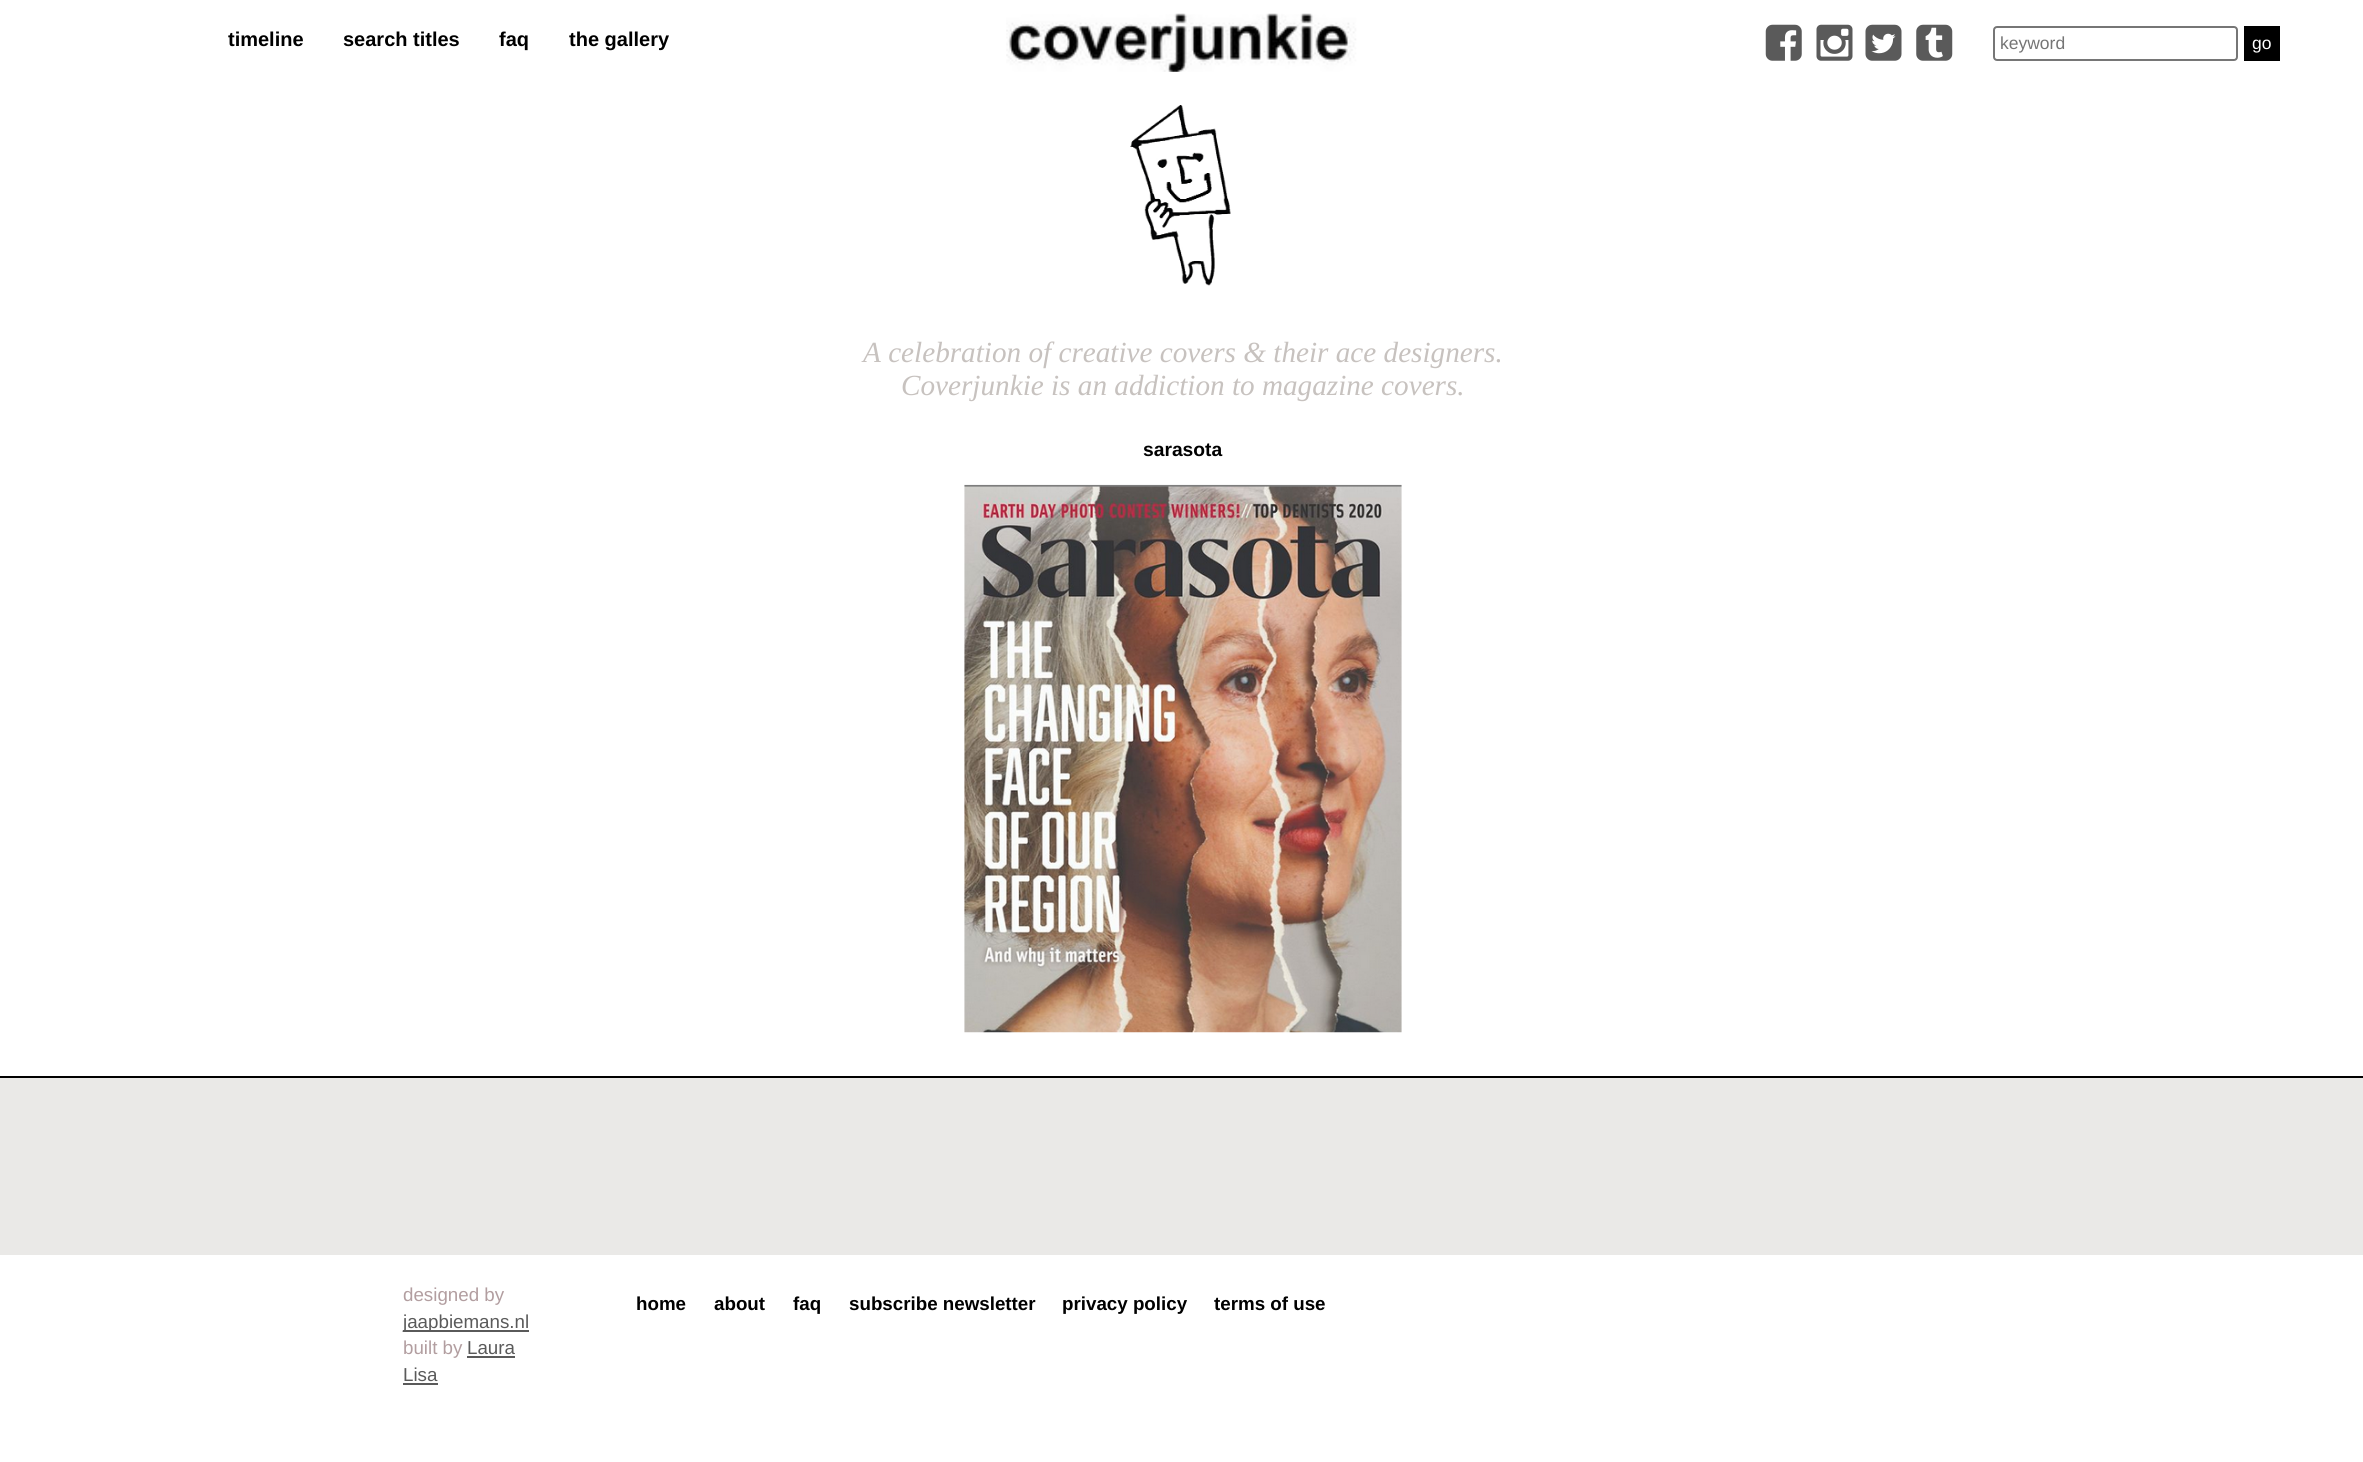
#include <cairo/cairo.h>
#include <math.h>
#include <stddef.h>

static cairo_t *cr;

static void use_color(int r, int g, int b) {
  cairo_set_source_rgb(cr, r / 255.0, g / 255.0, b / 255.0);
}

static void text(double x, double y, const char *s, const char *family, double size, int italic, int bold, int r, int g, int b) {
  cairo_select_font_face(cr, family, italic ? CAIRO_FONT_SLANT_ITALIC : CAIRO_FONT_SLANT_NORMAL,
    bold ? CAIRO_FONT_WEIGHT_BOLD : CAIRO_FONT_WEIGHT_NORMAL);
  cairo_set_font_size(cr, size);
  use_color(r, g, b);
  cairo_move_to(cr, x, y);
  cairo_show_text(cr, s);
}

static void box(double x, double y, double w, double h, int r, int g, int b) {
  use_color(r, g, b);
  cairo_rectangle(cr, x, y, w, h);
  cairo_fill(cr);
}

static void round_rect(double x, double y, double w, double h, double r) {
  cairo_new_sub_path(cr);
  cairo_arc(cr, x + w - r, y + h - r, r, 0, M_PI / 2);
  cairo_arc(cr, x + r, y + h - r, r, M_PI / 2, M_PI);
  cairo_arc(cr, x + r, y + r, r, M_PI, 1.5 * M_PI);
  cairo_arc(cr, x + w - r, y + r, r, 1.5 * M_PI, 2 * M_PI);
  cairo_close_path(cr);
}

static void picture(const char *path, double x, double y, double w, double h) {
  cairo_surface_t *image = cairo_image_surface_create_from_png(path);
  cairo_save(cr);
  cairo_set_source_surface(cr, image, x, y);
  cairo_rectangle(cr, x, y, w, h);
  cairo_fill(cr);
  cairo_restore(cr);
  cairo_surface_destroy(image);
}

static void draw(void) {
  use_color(255, 255, 255);
  cairo_paint(cr);
  picture("img_01.png", 1006, 13, 351, 59);
  picture("img_02.png", 1765, 24, 37, 37);
  picture("img_03.png", 1816, 24, 37, 37);
  picture("img_04.png", 1865, 24, 37, 37);
  picture("img_05.png", 1916, 24, 37, 37);
  round_rect(1994, 27, 243, 33, 3);
  use_color(118, 118, 118);
  cairo_stroke(cr);
  box(2244, 26, 36, 35, 0, 0, 0);
  picture("img_06.png", 1130, 105, 101, 181);
  picture("img_07.png", 964, 484, 438, 549);
  box(0, 1078, 2363, 177, 234, 233, 231);
  box(0, 1076, 2363, 2, 0, 0, 0);
  box(403, 1330, 126, 2, 90, 90, 90);
  box(467, 1356, 48, 2, 90, 90, 90);
  box(403, 1383, 35, 2, 90, 90, 90);
  text(228, 46, "timeline", "Liberation Sans", 20, 0, 1, 0, 0, 0);
  text(343, 46, "search titles", "Liberation Sans", 20, 0, 1, 0, 0, 0);
  text(499, 46, "faq", "Liberation Sans", 20, 0, 1, 0, 0, 0);
  text(569, 46, "the gallery", "Liberation Sans", 20, 0, 1, 0, 0, 0);
  text(2000, 49, "keyword", "Liberation Sans", 17.5, 0, 0, 117, 117, 117);
  text(2252, 49, "go", "Liberation Sans", 17.5, 0, 0, 255, 255, 255);
  text(863, 362, "A celebration of creative covers & their ace designers.", "Liberation Serif", 29.2, 1, 0, 199, 194, 191);
  text(901, 395, "Coverjunkie is an addiction to magazine covers.", "Liberation Serif", 29.2, 1, 0, 199, 194, 191);
  text(1143, 456, "sarasota", "Liberation Sans", 19.25, 0, 1, 0, 0, 0);
  text(403, 1301, "designed by", "Liberation Sans", 18.75, 0, 0, 178, 158, 160);
  text(403, 1328, "jaapbiemans.nl", "Liberation Sans", 18.75, 0, 0, 90, 90, 90);
  text(403, 1354, "built by", "Liberation Sans", 18.75, 0, 0, 178, 158, 160);
  text(467, 1354, "Laura", "Liberation Sans", 18.75, 0, 0, 90, 90, 90);
  text(403, 1381, "Lisa", "Liberation Sans", 18.75, 0, 0, 90, 90, 90);
  text(636, 1310, "home", "Liberation Sans", 18.75, 0, 1, 0, 0, 0);
  text(714, 1310, "about", "Liberation Sans", 18.75, 0, 1, 0, 0, 0);
  text(793, 1310, "faq", "Liberation Sans", 18.75, 0, 1, 0, 0, 0);
  text(849, 1310, "subscribe newsletter", "Liberation Sans", 18.75, 0, 1, 0, 0, 0);
  text(1062, 1310, "privacy policy", "Liberation Sans", 18.75, 0, 1, 0, 0, 0);
  text(1214, 1310, "terms of use", "Liberation Sans", 18.75, 0, 1, 0, 0, 0);
}

int main(void) {
  cairo_surface_t *surface = cairo_image_surface_create(CAIRO_FORMAT_RGB24, 2363, 1462);
  cr = cairo_create(surface);
  cairo_font_options_t *options = cairo_font_options_create();
  cairo_font_options_set_hint_metrics(options, CAIRO_HINT_METRICS_OFF);
  cairo_font_options_set_hint_style(options, CAIRO_HINT_STYLE_NONE);
  cairo_set_font_options(cr, options);
  cairo_set_miter_limit(cr, 4);
  draw();
  cairo_surface_write_to_png(surface, "out.png");
  cairo_font_options_destroy(options);
  cairo_destroy(cr);
  cairo_surface_destroy(surface);
  return 0;
}
